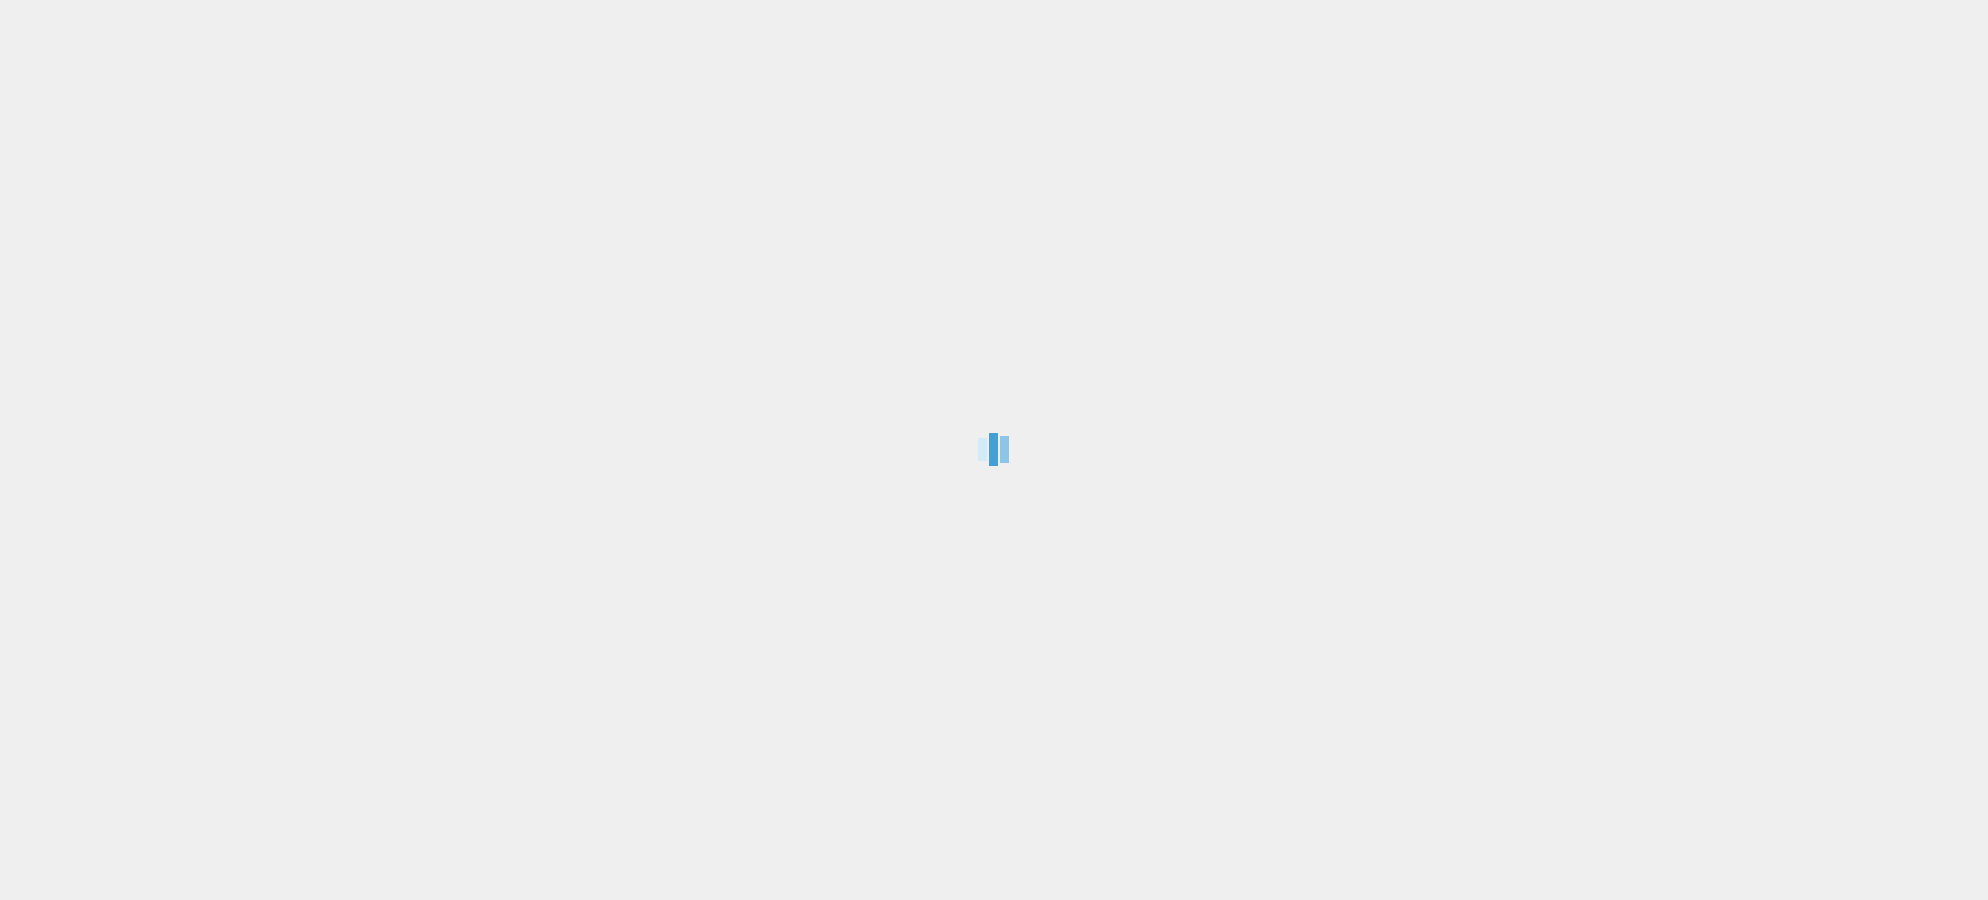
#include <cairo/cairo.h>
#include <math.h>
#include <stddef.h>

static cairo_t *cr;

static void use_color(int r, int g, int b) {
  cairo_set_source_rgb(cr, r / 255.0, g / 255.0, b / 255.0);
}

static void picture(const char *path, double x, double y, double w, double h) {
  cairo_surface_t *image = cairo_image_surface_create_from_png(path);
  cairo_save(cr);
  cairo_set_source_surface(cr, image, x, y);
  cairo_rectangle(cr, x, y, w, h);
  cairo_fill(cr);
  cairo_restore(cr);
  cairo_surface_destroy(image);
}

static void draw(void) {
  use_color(239, 239, 239);
  cairo_paint(cr);
  picture("img_01.png", 978, 433, 31, 33);
}

int main(void) {
  cairo_surface_t *surface = cairo_image_surface_create(CAIRO_FORMAT_RGB24, 1988, 900);
  cr = cairo_create(surface);
  cairo_font_options_t *options = cairo_font_options_create();
  cairo_font_options_set_hint_metrics(options, CAIRO_HINT_METRICS_OFF);
  cairo_font_options_set_hint_style(options, CAIRO_HINT_STYLE_NONE);
  cairo_set_font_options(cr, options);
  cairo_set_miter_limit(cr, 4);
  draw();
  cairo_surface_write_to_png(surface, "out.png");
  cairo_font_options_destroy(options);
  cairo_destroy(cr);
  cairo_surface_destroy(surface);
  return 0;
}
